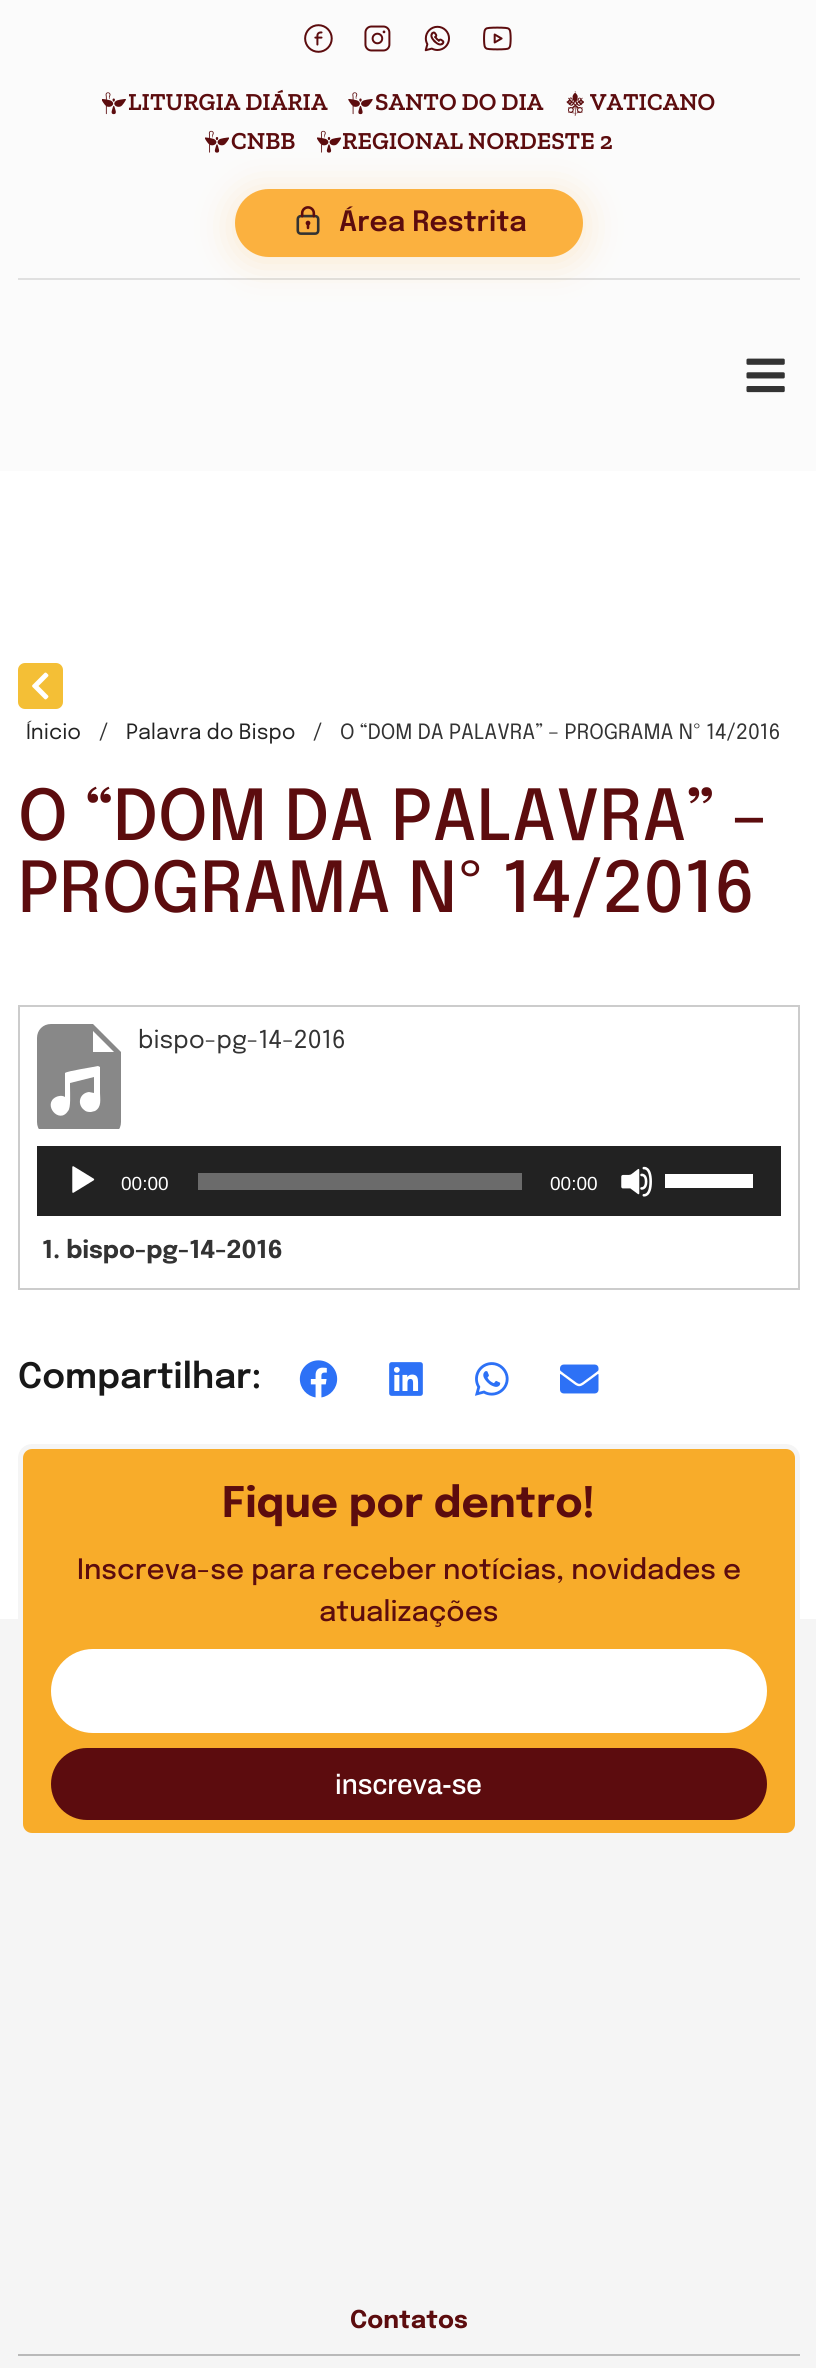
#include <cairo/cairo.h>
#include <math.h>
#include <stddef.h>

static cairo_t *cr;

static void use_color(int r, int g, int b) {
  cairo_set_source_rgb(cr, r / 255.0, g / 255.0, b / 255.0);
}

static void text(double x, double y, const char *s, const char *family, double size, int italic, int bold, int r, int g, int b) {
  cairo_select_font_face(cr, family, italic ? CAIRO_FONT_SLANT_ITALIC : CAIRO_FONT_SLANT_NORMAL,
    bold ? CAIRO_FONT_WEIGHT_BOLD : CAIRO_FONT_WEIGHT_NORMAL);
  cairo_set_font_size(cr, size);
  use_color(r, g, b);
  cairo_move_to(cr, x, y);
  cairo_show_text(cr, s);
}

static void box(double x, double y, double w, double h, int r, int g, int b) {
  use_color(r, g, b);
  cairo_rectangle(cr, x, y, w, h);
  cairo_fill(cr);
}

static void round_rect(double x, double y, double w, double h, double r) {
  cairo_new_sub_path(cr);
  cairo_arc(cr, x + w - r, y + h - r, r, 0, M_PI / 2);
  cairo_arc(cr, x + r, y + h - r, r, M_PI / 2, M_PI);
  cairo_arc(cr, x + r, y + r, r, M_PI, 1.5 * M_PI);
  cairo_arc(cr, x + w - r, y + r, r, 1.5 * M_PI, 2 * M_PI);
  cairo_close_path(cr);
}

static void shadow(double x, double y, double w, double h, double r, double blur, double alpha) {
  cairo_push_group_with_content(cr, CAIRO_CONTENT_ALPHA);
  cairo_set_operator(cr, CAIRO_OPERATOR_SOURCE);
  for (int i = 15; i >= -15 && fmin(w, h) + blur * i / 3 > 0; i -= 2) {
    double e = blur * i / 6;
    cairo_set_source_rgba(cr, 0, 0, 0, alpha * erfc((i - 1) / 8.5) / 2);
    round_rect(x - e, y - e, w + 2 * e, h + 2 * e, fmax(0, fmin(r + e + blur * .6, fmin(w, h) / 2 + e)));
    cairo_fill(cr);
  }
  cairo_pattern_t *soft = cairo_pop_group(cr);
  cairo_mask(cr, soft);
  cairo_pattern_destroy(soft);
}

static void picture(const char *path, double x, double y, double w, double h) {
  cairo_surface_t *image = cairo_image_surface_create_from_png(path);
  cairo_save(cr);
  cairo_set_source_surface(cr, image, x, y);
  cairo_rectangle(cr, x, y, w, h);
  cairo_fill(cr);
  cairo_restore(cr);
  cairo_surface_destroy(image);
}

static void draw(void) {
  use_color(255, 255, 255);
  cairo_paint(cr);
  box(0, 0, 816, 471, 251, 251, 251);
  box(18, 278, 782, 2, 224, 224, 224);
  picture("img_01.png", 304, 24, 29, 29);
  picture("img_02.png", 364, 25, 27, 27);
  picture("img_03.png", 424, 25, 26, 27);
  picture("img_04.png", 483, 26, 29, 25);
  picture("img_05.png", 102, 92, 24, 23);
  picture("img_06.png", 348, 92, 25, 23);
  picture("img_07.png", 566, 91, 18, 25);
  picture("img_08.png", 205, 130, 24, 23);
  picture("img_08.png", 317, 130, 24, 23);
  use_color(251, 177, 63);
  shadow(235, 193, 348, 68, 34, 19, 0.25);
  use_color(251, 177, 63);
  round_rect(235, 189, 348, 68, 34);
  cairo_fill(cr);
  picture("img_09.png", 296, 206, 24, 29);
  picture("img_10.png", 746, 358, 39, 35);
  use_color(244, 191, 54);
  round_rect(18, 663, 45, 46, 7);
  cairo_fill(cr);
  picture("img_11.png", 32, 672, 17, 28);
  cairo_rectangle(cr, 19, 1006, 780, 283);
  use_color(204, 204, 204);
  cairo_stroke(cr);
  cairo_save(cr);
  cairo_rectangle(cr, 37, 1024, 84, 105);
  cairo_clip(cr);
  use_color(136, 136, 136);
  cairo_set_fill_rule(cr, CAIRO_FILL_RULE_EVEN_ODD);
  cairo_new_path(cr);
  cairo_move_to(cr, 93, 1024);
  cairo_line_to(cr, 51, 1024);
  cairo_curve_to(cr, 43, 1024, 37, 1030, 37, 1038);
  cairo_line_to(cr, 37, 1122);
  cairo_curve_to(cr, 37, 1130, 43, 1136, 51, 1136);
  cairo_line_to(cr, 107, 1136);
  cairo_curve_to(cr, 115, 1136, 121, 1130, 121, 1122);
  cairo_line_to(cr, 121, 1052);
  cairo_close_path(cr);
  cairo_move_to(cr, 93, 1052);
  cairo_line_to(cr, 114, 1052);
  cairo_line_to(cr, 93, 1031);
  cairo_close_path(cr);
  cairo_move_to(cr, 100, 1093);
  cairo_line_to(cr, 100, 1067);
  cairo_line_to(cr, 98, 1066);
  cairo_curve_to(cr, 94, 1067, 67, 1071, 65, 1073);
  cairo_line_to(cr, 65, 1097);
  cairo_curve_to(cr, 62, 1095, 58, 1096, 56, 1097);
  cairo_curve_to(cr, 42, 1104, 59, 1125, 68, 1111);
  cairo_curve_to(cr, 71, 1108, 70, 1094, 70, 1086);
  cairo_line_to(cr, 70, 1083);
  cairo_line_to(cr, 94, 1077);
  cairo_line_to(cr, 94, 1093);
  cairo_line_to(cr, 89, 1092);
  cairo_curve_to(cr, 80, 1093, 77, 1103, 83, 1109);
  cairo_curve_to(cr, 86, 1112, 88, 1112, 91, 1112);
  cairo_line_to(cr, 95, 1111);
  cairo_curve_to(cr, 102, 1107, 100, 1099, 100, 1093);
  cairo_close_path(cr);
  cairo_fill(cr);
  cairo_restore(cr);
  box(37, 1146, 744, 70, 34, 34, 34);
  picture("img_12.png", 72, 1166, 23, 27);
  box(198, 1173, 324, 17, 107, 107, 107);
  picture("img_13.png", 621, 1166, 31, 31);
  box(665, 1174, 88, 14, 255, 255, 255);
  picture("img_14.png", 299, 1360, 39, 38);
  picture("img_15.png", 389, 1362, 34, 34);
  picture("img_16.png", 475, 1362, 34, 34);
  picture("img_17.png", 560, 1364, 39, 30);
  box(0, 1619, 816, 749, 245, 245, 245);
  use_color(248, 172, 42);
  round_rect(20.5, 1446.5, 777, 389, 11.5);
  cairo_fill_preserve(cr);
  use_color(245, 245, 245);
  cairo_set_line_width(cr, 5);
  cairo_stroke(cr);
  use_color(255, 255, 255);
  round_rect(51, 1649, 716, 84, 42);
  cairo_fill(cr);
  use_color(92, 12, 14);
  round_rect(51, 1748, 716, 72, 36);
  cairo_fill(cr);
  box(18, 2354, 782, 2, 185, 185, 185);
  text(128, 110, "LITURGIA DIÁRIA", "Zilla Slab SemiBold", 24.5, 0, 0, 92, 12, 14);
  text(375, 110, "SANTO DO DIA", "Zilla Slab SemiBold", 24.5, 0, 0, 92, 12, 14);
  text(590, 110, "VATICANO", "Zilla Slab SemiBold", 24.5, 0, 0, 92, 12, 14);
  text(231, 149, "CNBB", "Zilla Slab SemiBold", 24.5, 0, 0, 92, 12, 14);
  text(342, 149, "REGIONAL NORDESTE 2", "Zilla Slab SemiBold", 24.5, 0, 0, 92, 12, 14);
  text(339, 231, "Área Restrita", "Epilogue SemiBold", 28, 0, 0, 92, 12, 14);
  text(26, 739, "Ínicio", "Epilogue", 21, 0, 0, 35, 35, 35);
  text(99, 739, "/", "Epilogue", 21, 0, 0, 51, 51, 51);
  text(126, 739, "Palavra do Bispo", "Epilogue", 21, 0, 0, 35, 35, 35);
  text(313, 739, "/", "Epilogue", 21, 0, 0, 51, 51, 51);
  text(340, 739, "O “DOM DA PALAVRA” – PROGRAMA Nº 14/2016", "Epilogue", 21, 0, 0, 51, 51, 51);
  text(18, 840, "O “DOM DA PALAVRA” –", "Epilogue Medium", 70, 0, 0, 92, 12, 14);
  text(18, 912, "PROGRAMA Nº 14/2016", "Epilogue Medium", 70, 0, 0, 92, 12, 14);
  text(138, 1048, "bispo-pg-14-2016", "Epilogue", 24.5, 0, 0, 51, 51, 51);
  text(121, 1190, "00:00", "Liberation Sans", 19, 0, 0, 255, 255, 255);
  text(550, 1190, "00:00", "Liberation Sans", 19, 0, 0, 255, 255, 255);
  text(42, 1258, "1. bispo-pg-14-2016", "Epilogue", 24.5, 0, 1, 51, 51, 51);
  text(18, 1388, "Compartilhar:", "Epilogue SemiBold", 35, 0, 0, 24, 24, 24);
  text(222, 1517, "Fique por dentro!", "Epilogue", 42, 0, 1, 92, 12, 14);
  text(77, 1579, "Inscreva-se para receber notícias, novidades e", "Epilogue Medium", 28, 0, 0, 92, 12, 14);
  text(319, 1621, "atualizações", "Epilogue Medium", 28, 0, 0, 92, 12, 14);
  text(335, 1794, "inscreva-se", "Archivo Medium", 28, 0, 0, 255, 255, 255);
  text(350, 2328, "Contatos", "Epilogue", 24.5, 0, 1, 92, 12, 14);
}

int main(void) {
  cairo_surface_t *surface = cairo_image_surface_create(CAIRO_FORMAT_RGB24, 816, 2368);
  cr = cairo_create(surface);
  cairo_font_options_t *options = cairo_font_options_create();
  cairo_font_options_set_hint_metrics(options, CAIRO_HINT_METRICS_OFF);
  cairo_font_options_set_hint_style(options, CAIRO_HINT_STYLE_NONE);
  cairo_set_font_options(cr, options);
  cairo_set_miter_limit(cr, 4);
  draw();
  cairo_surface_write_to_png(surface, "out.png");
  cairo_font_options_destroy(options);
  cairo_destroy(cr);
  cairo_surface_destroy(surface);
  return 0;
}
